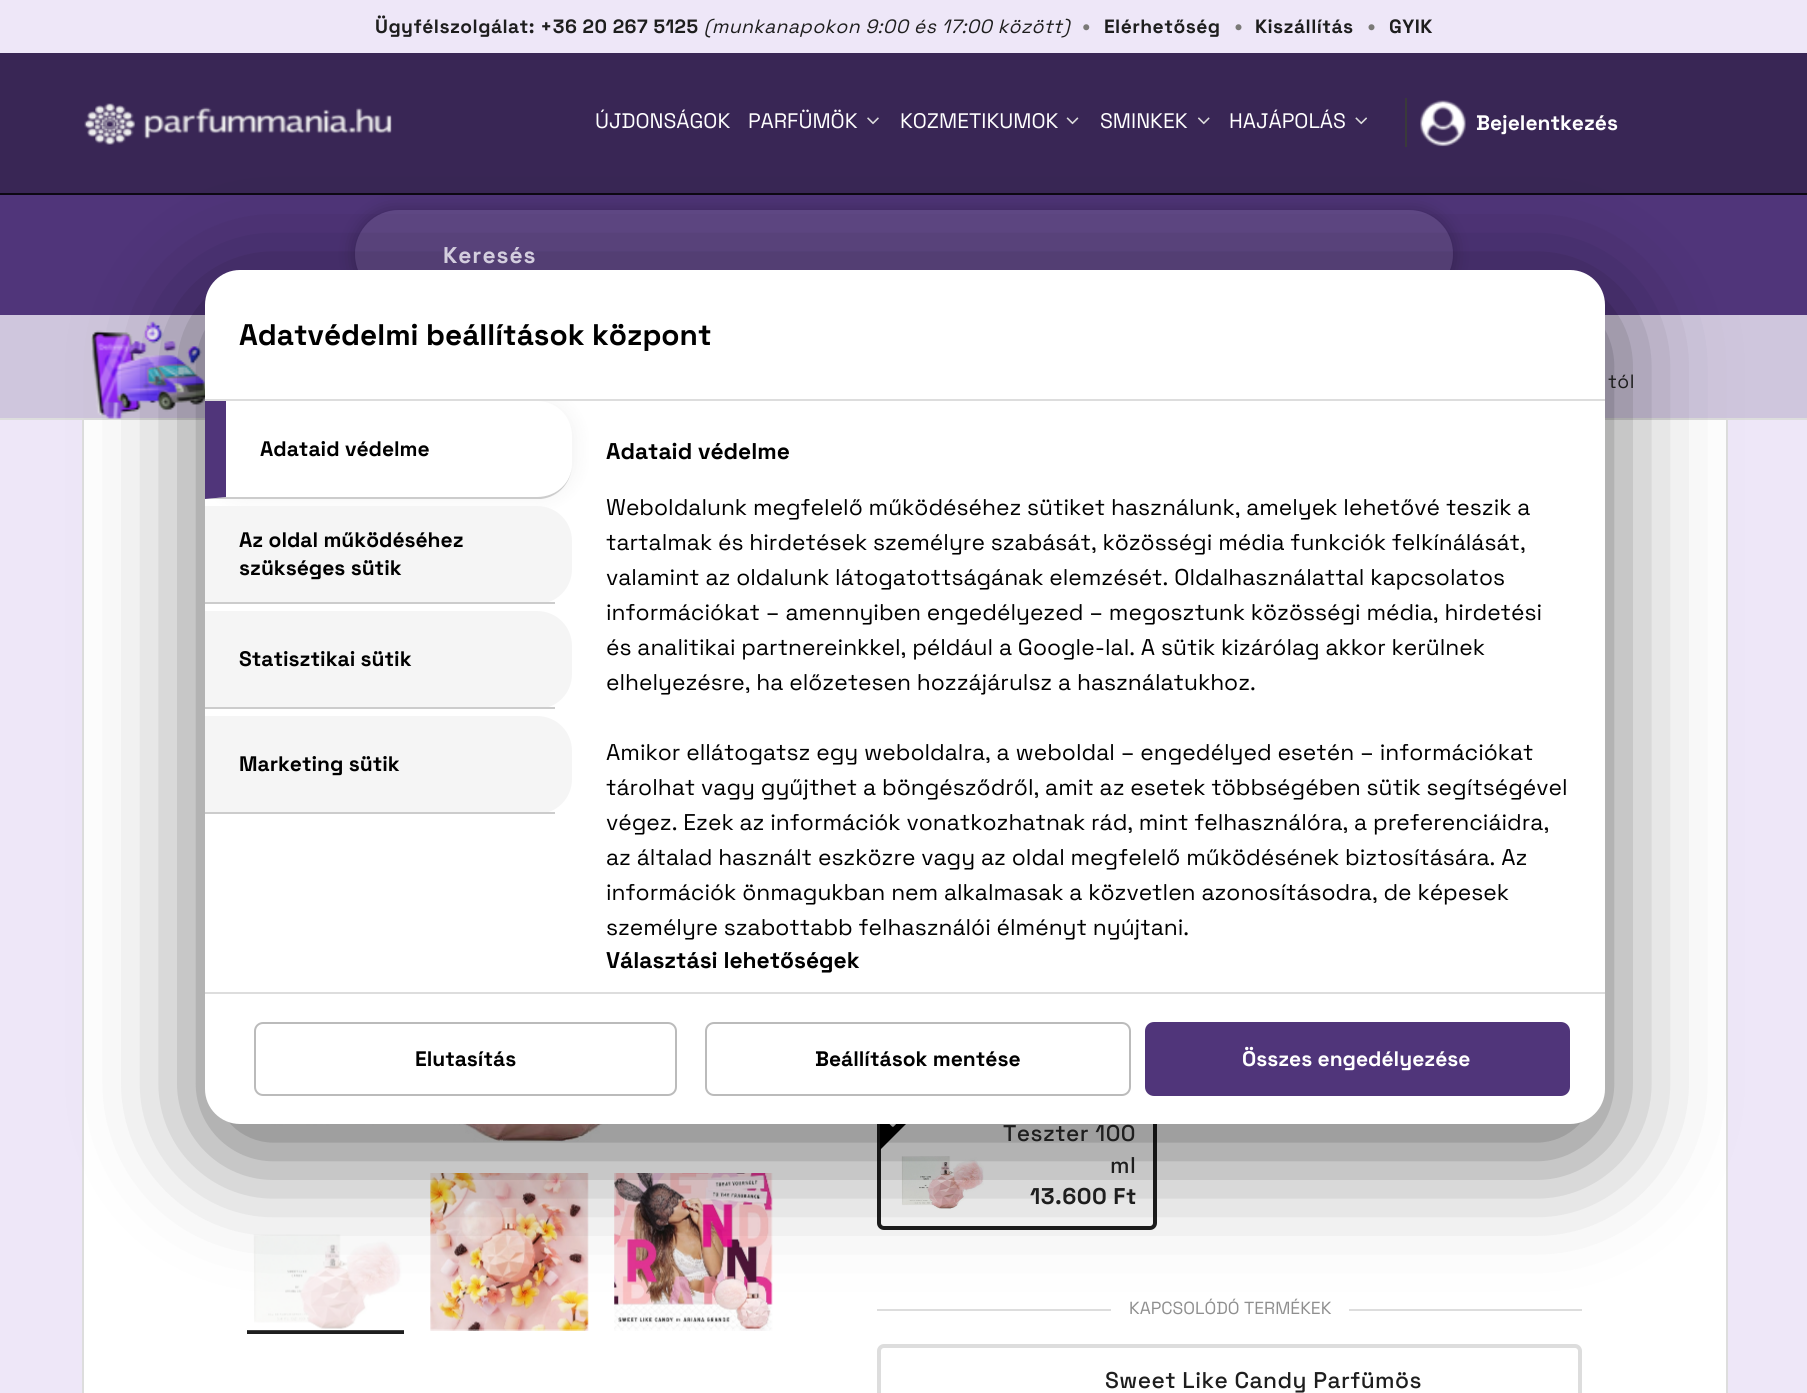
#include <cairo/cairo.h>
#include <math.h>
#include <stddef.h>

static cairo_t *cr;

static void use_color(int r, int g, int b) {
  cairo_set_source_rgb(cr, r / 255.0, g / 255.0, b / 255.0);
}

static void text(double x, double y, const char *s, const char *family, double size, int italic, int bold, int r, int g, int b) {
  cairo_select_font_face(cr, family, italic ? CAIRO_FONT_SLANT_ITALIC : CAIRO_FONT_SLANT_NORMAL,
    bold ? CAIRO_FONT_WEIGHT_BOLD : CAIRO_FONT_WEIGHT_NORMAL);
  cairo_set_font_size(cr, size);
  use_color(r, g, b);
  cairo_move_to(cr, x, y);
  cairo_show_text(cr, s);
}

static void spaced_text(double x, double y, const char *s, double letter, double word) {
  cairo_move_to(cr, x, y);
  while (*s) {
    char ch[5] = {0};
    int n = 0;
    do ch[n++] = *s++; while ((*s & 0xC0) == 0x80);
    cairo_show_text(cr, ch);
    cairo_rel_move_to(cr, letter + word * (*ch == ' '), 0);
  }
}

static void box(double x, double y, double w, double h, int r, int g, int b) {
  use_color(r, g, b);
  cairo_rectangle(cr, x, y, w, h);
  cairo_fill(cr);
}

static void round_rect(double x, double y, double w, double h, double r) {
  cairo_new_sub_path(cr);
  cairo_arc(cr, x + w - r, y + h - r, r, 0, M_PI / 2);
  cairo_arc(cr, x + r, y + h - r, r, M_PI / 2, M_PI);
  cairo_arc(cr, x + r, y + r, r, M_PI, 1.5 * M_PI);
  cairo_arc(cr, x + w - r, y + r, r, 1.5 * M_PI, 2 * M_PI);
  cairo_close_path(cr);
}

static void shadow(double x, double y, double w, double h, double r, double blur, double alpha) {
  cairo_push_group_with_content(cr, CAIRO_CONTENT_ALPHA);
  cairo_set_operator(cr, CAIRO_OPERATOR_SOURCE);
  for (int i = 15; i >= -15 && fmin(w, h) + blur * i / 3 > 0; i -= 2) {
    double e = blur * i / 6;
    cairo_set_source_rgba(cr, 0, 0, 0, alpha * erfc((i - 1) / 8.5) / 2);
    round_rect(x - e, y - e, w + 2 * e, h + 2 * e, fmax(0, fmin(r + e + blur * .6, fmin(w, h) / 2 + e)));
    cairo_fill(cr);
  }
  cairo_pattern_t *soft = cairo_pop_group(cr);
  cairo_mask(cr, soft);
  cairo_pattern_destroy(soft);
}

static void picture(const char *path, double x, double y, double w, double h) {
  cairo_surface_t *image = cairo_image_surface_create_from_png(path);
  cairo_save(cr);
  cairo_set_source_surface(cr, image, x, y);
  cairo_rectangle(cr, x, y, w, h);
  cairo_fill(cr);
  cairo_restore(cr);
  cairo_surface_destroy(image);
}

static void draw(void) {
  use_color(238, 231, 248);
  cairo_paint(cr);
  picture("img_01.png", 1083, 24, 7, 7);
  picture("img_02.png", 1235, 24, 7, 7);
  picture("img_02.png", 1368, 24, 7, 7);
  box(0, 53, 1807, 140, 57, 38, 85);
  picture("img_03.png", 84, 103, 308, 42);
  box(1405, 98, 2, 49, 58, 58, 58);
  picture("img_04.png", 867, 117, 12, 8);
  picture("img_05.png", 1066, 117, 13, 8);
  picture("img_06.png", 1197, 117, 13, 8);
  picture("img_07.png", 1355, 117, 13, 8);
  picture("img_08.png", 1420, 100, 46, 47);
  box(0, 195, 1807, 120, 80, 53, 122);
  box(0, 193, 1807, 2, 12, 8, 18);
  box(0, 315, 1807, 103, 207, 198, 221);
  cairo_save(cr);
  cairo_set_fill_rule(cr, CAIRO_FILL_RULE_EVEN_ODD);
  cairo_new_path(cr);
  cairo_move_to(cr, 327, 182);
  cairo_line_to(cr, 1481, 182);
  cairo_line_to(cr, 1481, 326);
  cairo_line_to(cr, 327, 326);
  cairo_close_path(cr);
  cairo_move_to(cr, 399, 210);
  cairo_line_to(cr, 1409, 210);
  cairo_curve_to(cr, 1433.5, 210, 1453, 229.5, 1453, 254);
  cairo_curve_to(cr, 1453, 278.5, 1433.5, 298, 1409, 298);
  cairo_line_to(cr, 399, 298);
  cairo_curve_to(cr, 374.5, 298, 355, 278.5, 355, 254);
  cairo_curve_to(cr, 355, 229.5, 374.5, 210, 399, 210);
  cairo_close_path(cr);
  cairo_clip(cr);
  use_color(0, 0, 0);
  shadow(355, 210, 1098, 88, 44, 9, 0.25);
  cairo_restore(cr);
  cairo_set_source_rgba(cr, 1, 1, 1, 0.1);
  round_rect(355, 210, 1098, 88, 44);
  cairo_fill(cr);
  box(0, 418, 1807, 2, 221, 221, 221);
  picture("img_09.png", 91, 321, 114, 98);
  box(84, 420, 1642, 973, 255, 255, 255);
  box(1726, 420, 2, 973, 221, 221, 221);
  box(82, 420, 2, 973, 221, 221, 221);
  picture("img_10.png", 270, 1124, 491, 18);
  box(247, 1330, 157, 4, 30, 30, 30);
  picture("img_11.png", 247, 1234, 157, 97);
  picture("img_12.png", 430, 1173, 159, 158);
  picture("img_13.png", 614, 1173, 159, 158);
  round_rect(879, 1103, 276, 125, 5);
  cairo_set_line_width(cr, 4);
  cairo_stroke(cr);
  use_color(0, 0, 0);
  cairo_new_path(cr);
  cairo_move_to(cr, 880, 1104);
  cairo_line_to(cr, 926, 1104);
  cairo_line_to(cr, 880, 1150);
  cairo_close_path(cr);
  cairo_fill(cr);
  picture("img_14.png", 889, 1124, 7, 3);
  picture("img_15.png", 901, 1156, 83, 53);
  box(877, 1309, 234, 2, 221, 221, 221);
  box(1349, 1309, 233, 2, 221, 221, 221);
  round_rect(879, 1346, 701, 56, 5);
  cairo_stroke(cr);
  use_color(0, 0, 0);
  shadow(205, 298, 1400, 854, 35, 56, 0.6);
  use_color(255, 255, 255);
  round_rect(205, 270, 1400, 854, 35);
  cairo_fill(cr);
  box(205, 399, 1400, 2, 221, 221, 221);
  box(205, 992, 1400, 2, 221, 221, 221);
  cairo_save(cr);
  cairo_rectangle(cr, 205, 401, 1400, 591);
  cairo_clip(cr);
  use_color(0, 0, 0);
  shadow(208, 401, 368, 98, 35, 9, 0.05);
  cairo_restore(cr);
  use_color(255, 255, 255);
  cairo_new_path(cr);
  cairo_move_to(cr, 205, 401);
  cairo_line_to(cr, 537, 401);
  cairo_curve_to(cr, 556.5, 401, 572, 416.5, 572, 436);
  cairo_line_to(cr, 572, 464);
  cairo_curve_to(cr, 572, 483.5, 556.5, 499, 537, 499);
  cairo_line_to(cr, 205, 499);
  cairo_close_path(cr);
  cairo_fill(cr);
  use_color(204, 204, 204);
  cairo_new_path(cr);
  cairo_move_to(cr, 205, 499);
  cairo_line_to(cr, 226, 497);
  cairo_line_to(cr, 537, 497);
  cairo_curve_to(cr, 557, 497, 572, 482, 572, 464);
  cairo_curve_to(cr, 572, 482, 559, 497, 541, 499);
  cairo_close_path(cr);
  cairo_fill(cr);
  use_color(80, 53, 122);
  cairo_new_path(cr);
  cairo_move_to(cr, 205, 401);
  cairo_line_to(cr, 226, 401);
  cairo_line_to(cr, 226, 497);
  cairo_line_to(cr, 205, 499);
  cairo_close_path(cr);
  cairo_fill(cr);
  use_color(245, 245, 245);
  cairo_new_path(cr);
  cairo_move_to(cr, 205, 506);
  cairo_line_to(cr, 537, 506);
  cairo_curve_to(cr, 556.5, 506, 572, 521.5, 572, 541);
  cairo_line_to(cr, 572, 569);
  cairo_curve_to(cr, 572, 588.5, 556.5, 604, 537, 604);
  cairo_line_to(cr, 205, 604);
  cairo_close_path(cr);
  cairo_fill(cr);
  box(205, 602, 350, 2, 204, 204, 204);
  use_color(245, 245, 245);
  cairo_new_path(cr);
  cairo_move_to(cr, 205, 611);
  cairo_line_to(cr, 537, 611);
  cairo_curve_to(cr, 556.5, 611, 572, 626.5, 572, 646);
  cairo_line_to(cr, 572, 674);
  cairo_curve_to(cr, 572, 693.5, 556.5, 709, 537, 709);
  cairo_line_to(cr, 205, 709);
  cairo_close_path(cr);
  cairo_fill(cr);
  box(205, 707, 350, 2, 204, 204, 204);
  use_color(245, 245, 245);
  cairo_new_path(cr);
  cairo_move_to(cr, 205, 716);
  cairo_line_to(cr, 537, 716);
  cairo_curve_to(cr, 556.5, 716, 572, 731.5, 572, 751);
  cairo_line_to(cr, 572, 779);
  cairo_curve_to(cr, 572, 798.5, 556.5, 814, 537, 814);
  cairo_line_to(cr, 205, 814);
  cairo_close_path(cr);
  cairo_fill(cr);
  box(205, 812, 350, 2, 204, 204, 204);
  round_rect(255, 1023, 421, 72, 8);
  use_color(187, 187, 187);
  cairo_set_line_width(cr, 2);
  cairo_stroke(cr);
  round_rect(706, 1023, 424, 72, 8);
  cairo_stroke(cr);
  use_color(80, 53, 122);
  round_rect(1146, 1023, 423, 72, 8);
  cairo_fill_preserve(cr);
  cairo_stroke(cr);
  cairo_select_font_face(cr, "Space Grotesk", CAIRO_FONT_SLANT_NORMAL, CAIRO_FONT_WEIGHT_BOLD);
  cairo_set_font_size(cr, 19.25);
  use_color(30, 30, 30);
  spaced_text(375, 33, "Ügyfélszolgálat: +36 20 267 5125", 0.45, 0);
  cairo_select_font_face(cr, "Space Grotesk", CAIRO_FONT_SLANT_ITALIC, CAIRO_FONT_WEIGHT_NORMAL);
  spaced_text(704, 33, "(munkanapokon 9:00 és 17:00 között)", 0.45, 0);
  cairo_select_font_face(cr, "Space Grotesk", CAIRO_FONT_SLANT_NORMAL, CAIRO_FONT_WEIGHT_BOLD);
  spaced_text(1104, 33, "Elérhetőség", 0.45, 0);
  spaced_text(1255, 33, "Kiszállítás", 0.45, 0);
  spaced_text(1389, 33, "GYIK", 0.45, 0);
  text(595, 128, "ÚJDONSÁGOK", "Space Grotesk", 21, 0, 0, 255, 255, 255);
  text(748, 128, "PARFÜMÖK", "Space Grotesk", 21, 0, 0, 255, 255, 255);
  text(900, 128, "KOZMETIKUMOK", "Space Grotesk", 21, 0, 0, 255, 255, 255);
  text(1100, 128, "SMINKEK", "Space Grotesk", 21, 0, 0, 255, 255, 255);
  text(1229, 128, "HAJÁPOLÁS", "Space Grotesk", 21, 0, 0, 255, 255, 255);
  text(1476, 130, "Bejelentkezés", "Space Grotesk", 21, 0, 1, 255, 255, 255);
  cairo_set_font_size(cr, 22.75);
  use_color(211, 205, 222);
  spaced_text(443, 263, "Keresés", 1, 0);
  cairo_select_font_face(cr, "Space Grotesk", CAIRO_FONT_SLANT_NORMAL, CAIRO_FONT_WEIGHT_NORMAL);
  cairo_set_font_size(cr, 19.25);
  use_color(30, 30, 30);
  spaced_text(1608, 388, "tól", 0.45, 0);
  cairo_select_font_face(cr, "Space Grotesk Medium", CAIRO_FONT_SLANT_NORMAL, CAIRO_FONT_WEIGHT_NORMAL);
  cairo_set_font_size(cr, 22.75);
  spaced_text(1003, 1141, "Teszter 100", 0.45, 0);
  spaced_text(1110, 1173, "ml", 0.45, 0);
  cairo_select_font_face(cr, "Space Grotesk", CAIRO_FONT_SLANT_NORMAL, CAIRO_FONT_WEIGHT_BOLD);
  spaced_text(1030, 1204, "13.600 Ft", 0.45, 0);
  text(1129, 1314, "KAPCSOLÓDÓ TERMÉKEK", "Space Grotesk", 17.5, 0, 0, 143, 143, 143);
  cairo_select_font_face(cr, "Space Grotesk Medium", CAIRO_FONT_SLANT_NORMAL, CAIRO_FONT_WEIGHT_NORMAL);
  cairo_set_font_size(cr, 22.75);
  use_color(30, 30, 30);
  spaced_text(1105, 1388, "Sweet Like Candy Parfümös", 0.45, 0);
  text(239, 345, "Adatvédelmi beállítások központ", "Space Grotesk", 29.75, 0, 1, 0, 0, 0);
  text(260, 456, "Adataid védelme", "Space Grotesk", 21, 0, 1, 0, 0, 0);
  text(239, 547, "Az oldal működéséhez", "Space Grotesk", 21, 0, 1, 0, 0, 0);
  text(239, 575, "szükséges sütik", "Space Grotesk", 21, 0, 1, 0, 0, 0);
  text(239, 666, "Statisztikai sütik", "Space Grotesk", 21, 0, 1, 0, 0, 0);
  text(239, 771, "Marketing sütik", "Space Grotesk", 21, 0, 1, 0, 0, 0);
  text(606, 459, "Adataid védelme", "Space Grotesk", 22.75, 0, 1, 0, 0, 0);
  text(606, 515, "Weboldalunk megfelelő működéséhez sütiket használunk, amelyek lehetővé teszik a", "Space Grotesk", 22.75, 0, 0, 0, 0, 0);
  text(606, 550, "tartalmak és hirdetések személyre szabását, közösségi média funkciók felkínálását,", "Space Grotesk", 22.75, 0, 0, 0, 0, 0);
  text(606, 585, "valamint az oldalunk látogatottságának elemzését. Oldalhasználattal kapcsolatos", "Space Grotesk", 22.75, 0, 0, 0, 0, 0);
  text(606, 620, "információkat – amennyiben engedélyezed – megosztunk közösségi média, hirdetési", "Space Grotesk", 22.75, 0, 0, 0, 0, 0);
  text(606, 655, "és analitikai partnereinkkel, például a Google-lal. A sütik kizárólag akkor kerülnek", "Space Grotesk", 22.75, 0, 0, 0, 0, 0);
  text(606, 690, "elhelyezésre, ha előzetesen hozzájárulsz a használatukhoz.", "Space Grotesk", 22.75, 0, 0, 0, 0, 0);
  text(606, 760, "Amikor ellátogatsz egy weboldalra, a weboldal – engedélyed esetén – információkat", "Space Grotesk", 22.75, 0, 0, 0, 0, 0);
  text(606, 795, "tárolhat vagy gyűjthet a böngésződről, amit az esetek többségében sütik segítségével", "Space Grotesk", 22.75, 0, 0, 0, 0, 0);
  text(606, 830, "végez. Ezek az információk vonatkozhatnak rád, mint felhasználóra, a preferenciáidra,", "Space Grotesk", 22.75, 0, 0, 0, 0, 0);
  text(606, 865, "az általad használt eszközre vagy az oldal megfelelő működésének biztosítására. Az", "Space Grotesk", 22.75, 0, 0, 0, 0, 0);
  text(606, 900, "információk önmagukban nem alkalmasak a közvetlen azonosításodra, de képesek", "Space Grotesk", 22.75, 0, 0, 0, 0, 0);
  text(606, 935, "személyre szabottabb felhasználói élményt nyújtani.", "Space Grotesk", 22.75, 0, 0, 0, 0, 0);
  text(606, 968, "Választási lehetőségek", "Space Grotesk", 22.75, 0, 1, 0, 0, 0);
  text(415, 1066, "Elutasítás", "Space Grotesk", 21, 0, 1, 0, 0, 0);
  text(815, 1066, "Beállítások mentése", "Space Grotesk", 21, 0, 1, 0, 0, 0);
  text(1242, 1066, "Összes engedélyezése", "Space Grotesk", 21, 0, 1, 255, 255, 255);
}

int main(void) {
  cairo_surface_t *surface = cairo_image_surface_create(CAIRO_FORMAT_RGB24, 1807, 1393);
  cr = cairo_create(surface);
  cairo_font_options_t *options = cairo_font_options_create();
  cairo_font_options_set_hint_metrics(options, CAIRO_HINT_METRICS_OFF);
  cairo_font_options_set_hint_style(options, CAIRO_HINT_STYLE_NONE);
  cairo_set_font_options(cr, options);
  cairo_set_miter_limit(cr, 4);
  draw();
  cairo_surface_write_to_png(surface, "out.png");
  cairo_font_options_destroy(options);
  cairo_destroy(cr);
  cairo_surface_destroy(surface);
  return 0;
}
